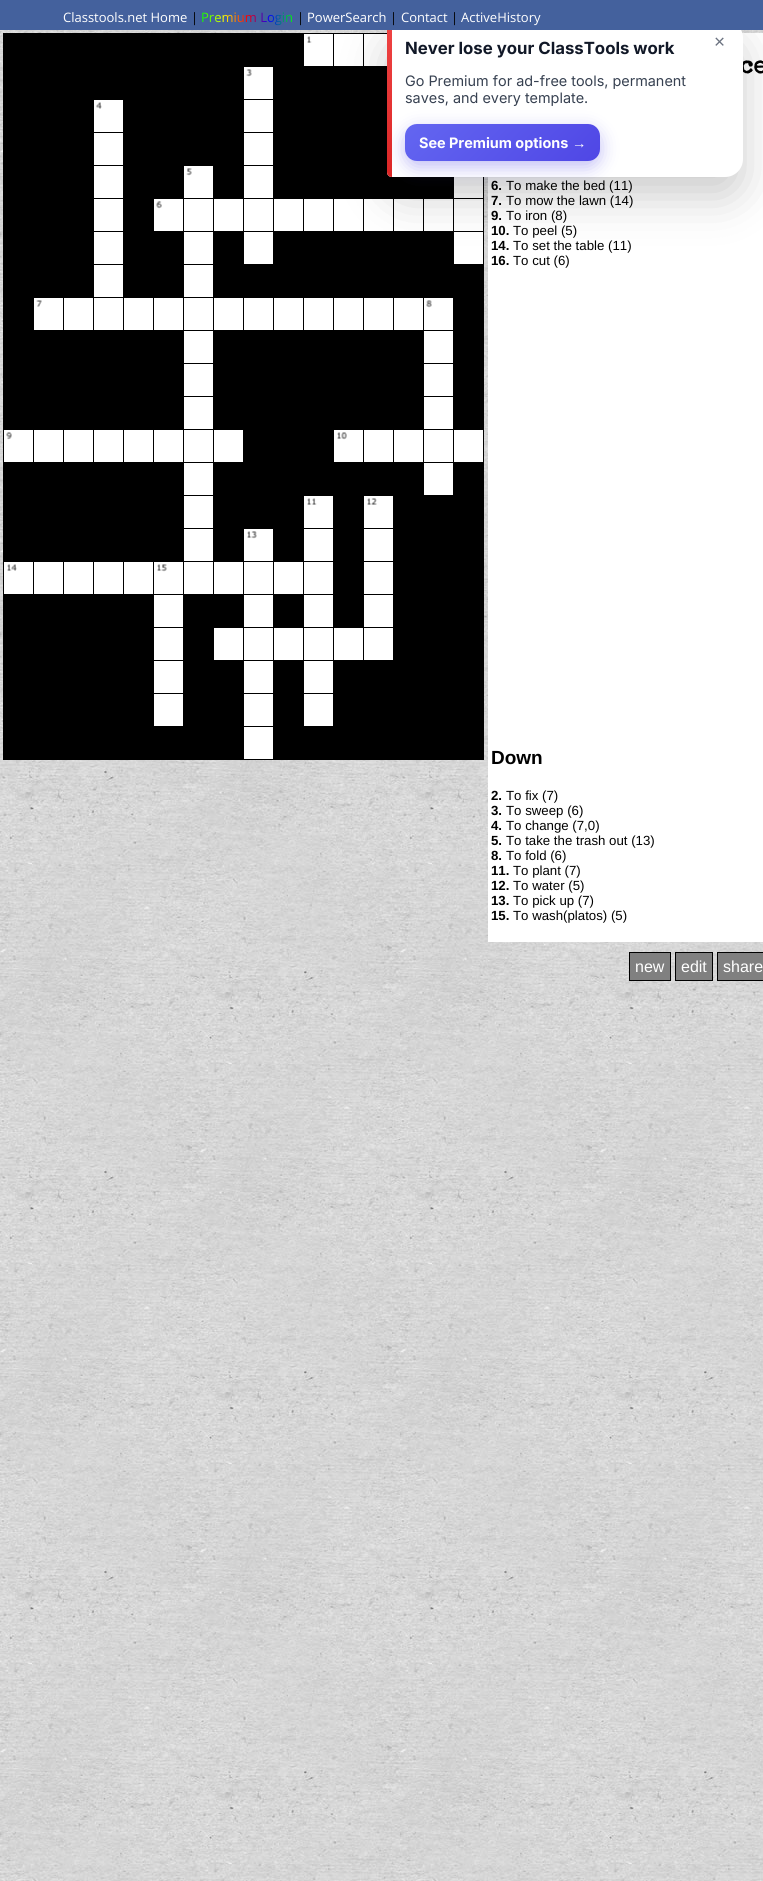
#include <cairo/cairo.h>
#include <math.h>
#include <stddef.h>

static cairo_t *cr;

static void use_color(int r, int g, int b) {
  cairo_set_source_rgb(cr, r / 255.0, g / 255.0, b / 255.0);
}

static void text(double x, double y, const char *s, const char *family, double size, int italic, int bold, int r, int g, int b) {
  cairo_select_font_face(cr, family, italic ? CAIRO_FONT_SLANT_ITALIC : CAIRO_FONT_SLANT_NORMAL,
    bold ? CAIRO_FONT_WEIGHT_BOLD : CAIRO_FONT_WEIGHT_NORMAL);
  cairo_set_font_size(cr, size);
  use_color(r, g, b);
  cairo_move_to(cr, x, y);
  cairo_show_text(cr, s);
}

static void box(double x, double y, double w, double h, int r, int g, int b) {
  use_color(r, g, b);
  cairo_rectangle(cr, x, y, w, h);
  cairo_fill(cr);
}

static void round_rect(double x, double y, double w, double h, double r) {
  cairo_new_sub_path(cr);
  cairo_arc(cr, x + w - r, y + h - r, r, 0, M_PI / 2);
  cairo_arc(cr, x + r, y + h - r, r, M_PI / 2, M_PI);
  cairo_arc(cr, x + r, y + r, r, M_PI, 1.5 * M_PI);
  cairo_arc(cr, x + w - r, y + r, r, 1.5 * M_PI, 2 * M_PI);
  cairo_close_path(cr);
}

static void shadow(double x, double y, double w, double h, double r, double blur, double alpha) {
  cairo_push_group_with_content(cr, CAIRO_CONTENT_ALPHA);
  cairo_set_operator(cr, CAIRO_OPERATOR_SOURCE);
  for (int i = 15; i >= -15 && fmin(w, h) + blur * i / 3 > 0; i -= 2) {
    double e = blur * i / 6;
    cairo_set_source_rgba(cr, 0, 0, 0, alpha * erfc((i - 1) / 8.5) / 2);
    round_rect(x - e, y - e, w + 2 * e, h + 2 * e, fmax(0, fmin(r + e + blur * .6, fmin(w, h) / 2 + e)));
    cairo_fill(cr);
  }
  cairo_pattern_t *soft = cairo_pop_group(cr);
  cairo_mask(cr, soft);
  cairo_pattern_destroy(soft);
}

static void picture(const char *path, double x, double y, double w, double h) {
  cairo_surface_t *image = cairo_image_surface_create_from_png(path);
  cairo_save(cr);
  cairo_set_source_surface(cr, image, x, y);
  cairo_rectangle(cr, x, y, w, h);
  cairo_fill(cr);
  cairo_restore(cr);
  cairo_surface_destroy(image);
}

static void draw(void) {
  cairo_pattern_t *gradient;
  use_color(255, 255, 255);
  cairo_paint(cr);
  picture("img_01.png", 0, 30, 763, 1851);
  box(304, 34, 29, 32, 255, 255, 255);
  box(363, 33, 31, 1, 0, 0, 0);
  box(34, 34, 270, 33, 0, 0, 0);
  box(303, 66, 91, 1, 0, 0, 0);
  box(363, 33, 1, 34, 0, 0, 0);
  box(333, 33, 31, 1, 0, 0, 0);
  box(333, 33, 1, 34, 0, 0, 0);
  box(3, 33, 331, 1, 0, 0, 0);
  box(334, 34, 29, 32, 255, 255, 255);
  box(364, 34, 23, 32, 255, 255, 255);
  box(304, 67, 83, 33, 0, 0, 0);
  box(304, 100, 83, 33, 0, 0, 0);
  box(304, 133, 83, 33, 0, 0, 0);
  box(304, 166, 90, 33, 0, 0, 0);
  box(394, 177, 60, 22, 0, 0, 0);
  box(454, 177, 29, 21, 255, 255, 255);
  box(304, 199, 29, 32, 255, 255, 255);
  box(334, 199, 29, 32, 255, 255, 255);
  box(273, 231, 211, 1, 0, 0, 0);
  box(333, 198, 1, 34, 0, 0, 0);
  box(364, 199, 29, 32, 255, 255, 255);
  box(363, 198, 1, 34, 0, 0, 0);
  box(394, 199, 29, 32, 255, 255, 255);
  box(393, 198, 1, 34, 0, 0, 0);
  box(424, 199, 29, 32, 255, 255, 255);
  box(423, 198, 1, 34, 0, 0, 0);
  box(454, 199, 29, 32, 255, 255, 255);
  box(453, 198, 31, 1, 0, 0, 0);
  box(304, 232, 150, 33, 0, 0, 0);
  box(453, 264, 31, 1, 0, 0, 0);
  box(483, 231, 1, 34, 0, 0, 0);
  box(483, 177, 1, 55, 0, 0, 0);
  box(453, 198, 1, 34, 0, 0, 0);
  box(454, 232, 29, 32, 255, 255, 255);
  box(244, 265, 240, 33, 0, 0, 0);
  box(488, 33, 275, 909, 255, 255, 255);
  use_color(0, 0, 0);
  shadow(387, 40, 356, 157, 18, 22.5, 0.2);
  box(4, 34, 30, 32, 0, 0, 0);
  box(3, 66, 31, 1, 0, 0, 0);
  box(3, 99, 31, 1, 0, 0, 0);
  box(3, 132, 31, 1, 0, 0, 0);
  box(3, 165, 31, 1, 0, 0, 0);
  box(3, 198, 31, 1, 0, 0, 0);
  box(3, 231, 31, 1, 0, 0, 0);
  box(3, 264, 31, 1, 0, 0, 0);
  box(3, 297, 31, 1, 0, 0, 0);
  box(453, 330, 31, 1, 0, 0, 0);
  box(244, 331, 180, 33, 0, 0, 0);
  box(453, 363, 31, 1, 0, 0, 0);
  box(244, 364, 180, 33, 0, 0, 0);
  box(453, 396, 31, 1, 0, 0, 0);
  box(244, 397, 180, 33, 0, 0, 0);
  box(453, 429, 31, 1, 0, 0, 0);
  box(274, 430, 60, 33, 0, 0, 0);
  box(453, 462, 31, 1, 0, 0, 0);
  box(244, 463, 180, 33, 0, 0, 0);
  box(423, 495, 61, 1, 0, 0, 0);
  box(453, 462, 1, 34, 0, 0, 0);
  box(333, 462, 121, 1, 0, 0, 0);
  box(453, 429, 1, 34, 0, 0, 0);
  box(423, 429, 31, 1, 0, 0, 0);
  box(453, 396, 1, 34, 0, 0, 0);
  box(423, 396, 31, 1, 0, 0, 0);
  box(453, 363, 1, 34, 0, 0, 0);
  box(423, 363, 31, 1, 0, 0, 0);
  box(453, 330, 1, 34, 0, 0, 0);
  box(213, 330, 241, 1, 0, 0, 0);
  box(34, 331, 150, 33, 0, 0, 0);
  box(213, 363, 31, 1, 0, 0, 0);
  box(34, 364, 150, 33, 0, 0, 0);
  box(213, 396, 31, 1, 0, 0, 0);
  box(34, 397, 150, 33, 0, 0, 0);
  box(213, 462, 61, 1, 0, 0, 0);
  box(243, 429, 1, 34, 0, 0, 0);
  box(213, 429, 31, 1, 0, 0, 0);
  box(34, 463, 150, 33, 0, 0, 0);
  box(213, 495, 31, 1, 0, 0, 0);
  box(34, 496, 150, 33, 0, 0, 0);
  box(213, 528, 31, 1, 0, 0, 0);
  box(34, 529, 150, 33, 0, 0, 0);
  box(393, 561, 31, 1, 0, 0, 0);
  box(393, 594, 31, 1, 0, 0, 0);
  box(393, 627, 31, 1, 0, 0, 0);
  box(333, 660, 91, 1, 0, 0, 0);
  box(393, 627, 1, 34, 0, 0, 0);
  box(363, 627, 31, 1, 0, 0, 0);
  box(393, 594, 1, 34, 0, 0, 0);
  box(333, 594, 61, 1, 0, 0, 0);
  box(393, 561, 1, 34, 0, 0, 0);
  box(333, 561, 61, 1, 0, 0, 0);
  box(363, 627, 1, 34, 0, 0, 0);
  box(333, 627, 31, 1, 0, 0, 0);
  box(333, 693, 31, 1, 0, 0, 0);
  box(273, 726, 91, 1, 0, 0, 0);
  box(333, 693, 1, 34, 0, 0, 0);
  box(273, 693, 61, 1, 0, 0, 0);
  box(333, 660, 1, 34, 0, 0, 0);
  box(273, 660, 61, 1, 0, 0, 0);
  box(333, 627, 1, 34, 0, 0, 0);
  box(303, 627, 31, 1, 0, 0, 0);
  box(333, 594, 1, 34, 0, 0, 0);
  box(273, 594, 61, 1, 0, 0, 0);
  box(333, 561, 1, 34, 0, 0, 0);
  box(303, 561, 31, 1, 0, 0, 0);
  box(303, 561, 1, 34, 0, 0, 0);
  box(273, 561, 31, 1, 0, 0, 0);
  box(214, 595, 30, 33, 0, 0, 0);
  box(303, 627, 1, 34, 0, 0, 0);
  box(273, 627, 31, 1, 0, 0, 0);
  box(214, 661, 30, 66, 0, 0, 0);
  box(273, 759, 31, 1, 0, 0, 0);
  box(273, 726, 1, 34, 0, 0, 0);
  box(243, 726, 31, 1, 0, 0, 0);
  box(273, 693, 1, 34, 0, 0, 0);
  box(243, 693, 31, 1, 0, 0, 0);
  box(273, 660, 1, 34, 0, 0, 0);
  box(183, 660, 91, 1, 0, 0, 0);
  box(273, 627, 1, 34, 0, 0, 0);
  box(243, 627, 31, 1, 0, 0, 0);
  box(273, 594, 1, 34, 0, 0, 0);
  box(183, 594, 91, 1, 0, 0, 0);
  box(273, 561, 1, 34, 0, 0, 0);
  box(243, 561, 31, 1, 0, 0, 0);
  box(243, 561, 1, 34, 0, 0, 0);
  box(213, 561, 31, 1, 0, 0, 0);
  box(213, 561, 1, 34, 0, 0, 0);
  box(183, 561, 31, 1, 0, 0, 0);
  box(213, 528, 1, 34, 0, 0, 0);
  box(183, 528, 31, 1, 0, 0, 0);
  box(213, 495, 1, 34, 0, 0, 0);
  box(183, 495, 31, 1, 0, 0, 0);
  box(213, 462, 1, 34, 0, 0, 0);
  box(3, 462, 211, 1, 0, 0, 0);
  box(213, 429, 1, 34, 0, 0, 0);
  box(183, 429, 31, 1, 0, 0, 0);
  box(213, 396, 1, 34, 0, 0, 0);
  box(183, 396, 31, 1, 0, 0, 0);
  box(213, 363, 1, 34, 0, 0, 0);
  box(183, 363, 31, 1, 0, 0, 0);
  box(213, 330, 1, 34, 0, 0, 0);
  box(3, 330, 211, 1, 0, 0, 0);
  box(3, 363, 31, 1, 0, 0, 0);
  box(3, 396, 31, 1, 0, 0, 0);
  box(33, 429, 1, 34, 0, 0, 0);
  box(3, 429, 31, 1, 0, 0, 0);
  box(3, 495, 31, 1, 0, 0, 0);
  box(3, 528, 31, 1, 0, 0, 0);
  box(34, 595, 120, 33, 0, 0, 0);
  box(183, 627, 31, 1, 0, 0, 0);
  box(34, 628, 120, 33, 0, 0, 0);
  box(34, 661, 120, 33, 0, 0, 0);
  box(183, 693, 31, 1, 0, 0, 0);
  box(34, 694, 120, 33, 0, 0, 0);
  box(153, 726, 61, 1, 0, 0, 0);
  box(183, 693, 1, 34, 0, 0, 0);
  box(153, 693, 31, 1, 0, 0, 0);
  box(183, 660, 1, 34, 0, 0, 0);
  box(153, 660, 31, 1, 0, 0, 0);
  box(183, 627, 1, 34, 0, 0, 0);
  box(153, 627, 31, 1, 0, 0, 0);
  box(183, 594, 1, 34, 0, 0, 0);
  box(3, 594, 181, 1, 0, 0, 0);
  box(33, 561, 1, 34, 0, 0, 0);
  box(3, 561, 31, 1, 0, 0, 0);
  box(3, 627, 31, 1, 0, 0, 0);
  box(3, 660, 31, 1, 0, 0, 0);
  box(3, 693, 31, 1, 0, 0, 0);
  box(3, 726, 31, 1, 0, 0, 0);
  box(3, 759, 31, 1, 0, 0, 0);
  box(3, 726, 1, 34, 0, 0, 0);
  box(3, 693, 1, 34, 0, 0, 0);
  box(3, 660, 1, 34, 0, 0, 0);
  box(3, 627, 1, 34, 0, 0, 0);
  box(3, 594, 1, 34, 0, 0, 0);
  box(3, 561, 1, 34, 0, 0, 0);
  box(3, 528, 1, 34, 0, 0, 0);
  box(3, 495, 1, 34, 0, 0, 0);
  box(3, 462, 1, 34, 0, 0, 0);
  box(3, 429, 1, 34, 0, 0, 0);
  box(3, 396, 1, 34, 0, 0, 0);
  box(3, 363, 1, 34, 0, 0, 0);
  box(3, 330, 1, 34, 0, 0, 0);
  box(3, 297, 1, 34, 0, 0, 0);
  box(3, 264, 1, 34, 0, 0, 0);
  box(3, 231, 1, 34, 0, 0, 0);
  box(3, 198, 1, 34, 0, 0, 0);
  box(3, 165, 1, 34, 0, 0, 0);
  box(3, 132, 1, 34, 0, 0, 0);
  box(3, 99, 1, 34, 0, 0, 0);
  box(3, 66, 1, 34, 0, 0, 0);
  box(3, 33, 1, 34, 0, 0, 0);
  picture("img_02.png", 307, 36, 5, 7);
  box(4, 67, 30, 32, 0, 0, 0);
  box(274, 67, 30, 32, 0, 0, 0);
  box(34, 67, 210, 33, 0, 0, 0);
  box(273, 99, 31, 1, 0, 0, 0);
  box(154, 100, 90, 33, 0, 0, 0);
  box(273, 132, 31, 1, 0, 0, 0);
  box(154, 133, 90, 33, 0, 0, 0);
  box(273, 165, 31, 1, 0, 0, 0);
  box(303, 198, 1, 34, 0, 0, 0);
  box(273, 198, 31, 1, 0, 0, 0);
  box(213, 264, 91, 1, 0, 0, 0);
  box(273, 231, 1, 34, 0, 0, 0);
  box(213, 231, 61, 1, 0, 0, 0);
  box(273, 198, 1, 34, 0, 0, 0);
  box(243, 198, 31, 1, 0, 0, 0);
  box(273, 165, 1, 34, 0, 0, 0);
  box(243, 165, 31, 1, 0, 0, 0);
  box(273, 132, 1, 34, 0, 0, 0);
  box(243, 132, 31, 1, 0, 0, 0);
  box(273, 99, 1, 34, 0, 0, 0);
  box(243, 99, 31, 1, 0, 0, 0);
  box(273, 66, 1, 34, 0, 0, 0);
  box(244, 67, 29, 32, 255, 255, 255);
  picture("img_03.png", 246, 69, 6, 8);
  box(4, 100, 30, 32, 0, 0, 0);
  box(34, 100, 60, 33, 0, 0, 0);
  box(94, 100, 29, 32, 255, 255, 255);
  picture("img_04.png", 96, 102, 6, 7);
  box(124, 100, 30, 32, 0, 0, 0);
  box(123, 132, 31, 1, 0, 0, 0);
  box(34, 133, 60, 33, 0, 0, 0);
  box(123, 165, 31, 1, 0, 0, 0);
  box(34, 166, 60, 33, 0, 0, 0);
  box(123, 198, 31, 1, 0, 0, 0);
  box(34, 199, 60, 33, 0, 0, 0);
  box(154, 232, 30, 66, 0, 0, 0);
  box(243, 297, 1, 34, 0, 0, 0);
  box(213, 297, 31, 1, 0, 0, 0);
  box(213, 297, 1, 34, 0, 0, 0);
  box(183, 297, 31, 1, 0, 0, 0);
  box(213, 264, 1, 34, 0, 0, 0);
  box(183, 264, 31, 1, 0, 0, 0);
  box(213, 231, 1, 34, 0, 0, 0);
  box(123, 231, 91, 1, 0, 0, 0);
  box(34, 232, 60, 33, 0, 0, 0);
  box(123, 264, 31, 1, 0, 0, 0);
  box(34, 265, 60, 33, 0, 0, 0);
  box(153, 297, 1, 34, 0, 0, 0);
  box(123, 297, 31, 1, 0, 0, 0);
  box(123, 297, 1, 34, 0, 0, 0);
  box(93, 297, 31, 1, 0, 0, 0);
  box(123, 264, 1, 34, 0, 0, 0);
  box(93, 264, 31, 1, 0, 0, 0);
  box(123, 231, 1, 34, 0, 0, 0);
  box(93, 231, 31, 1, 0, 0, 0);
  box(123, 198, 1, 34, 0, 0, 0);
  box(93, 198, 31, 1, 0, 0, 0);
  box(123, 165, 1, 34, 0, 0, 0);
  box(93, 165, 31, 1, 0, 0, 0);
  box(123, 132, 1, 34, 0, 0, 0);
  box(93, 132, 31, 1, 0, 0, 0);
  box(123, 99, 1, 34, 0, 0, 0);
  box(244, 100, 29, 32, 255, 255, 255);
  box(274, 100, 30, 32, 0, 0, 0);
  box(4, 133, 30, 32, 0, 0, 0);
  box(94, 133, 29, 32, 255, 255, 255);
  box(124, 133, 30, 32, 0, 0, 0);
  box(244, 133, 29, 32, 255, 255, 255);
  box(274, 133, 30, 32, 0, 0, 0);
  box(4, 166, 30, 32, 0, 0, 0);
  box(94, 166, 29, 32, 255, 255, 255);
  box(124, 166, 30, 32, 0, 0, 0);
  box(154, 166, 30, 33, 0, 0, 0);
  box(184, 166, 29, 32, 255, 255, 255);
  picture("img_05.png", 186, 168, 6, 8);
  box(214, 166, 30, 32, 0, 0, 0);
  box(243, 198, 1, 34, 0, 0, 0);
  box(213, 198, 31, 1, 0, 0, 0);
  box(213, 198, 1, 34, 0, 0, 0);
  box(183, 198, 31, 1, 0, 0, 0);
  box(213, 165, 1, 34, 0, 0, 0);
  box(244, 166, 29, 32, 255, 255, 255);
  box(274, 166, 30, 32, 0, 0, 0);
  box(4, 199, 30, 32, 0, 0, 0);
  box(94, 199, 29, 32, 255, 255, 255);
  box(124, 199, 30, 32, 0, 0, 0);
  box(154, 199, 29, 32, 255, 255, 255);
  picture("img_06.png", 156, 201, 6, 8);
  box(184, 199, 29, 32, 255, 255, 255);
  box(183, 198, 1, 34, 0, 0, 0);
  box(214, 199, 29, 32, 255, 255, 255);
  box(244, 199, 29, 32, 255, 255, 255);
  box(274, 199, 29, 32, 255, 255, 255);
  box(4, 232, 30, 32, 0, 0, 0);
  box(94, 232, 29, 32, 255, 255, 255);
  box(124, 232, 30, 32, 0, 0, 0);
  box(184, 232, 29, 32, 255, 255, 255);
  box(214, 232, 30, 32, 0, 0, 0);
  box(244, 232, 29, 32, 255, 255, 255);
  box(274, 232, 30, 32, 0, 0, 0);
  box(4, 265, 30, 32, 0, 0, 0);
  box(94, 265, 29, 32, 255, 255, 255);
  box(124, 265, 30, 32, 0, 0, 0);
  box(184, 265, 29, 32, 255, 255, 255);
  box(214, 265, 30, 32, 0, 0, 0);
  box(4, 298, 30, 32, 0, 0, 0);
  box(34, 298, 29, 32, 255, 255, 255);
  picture("img_07.png", 36, 300, 6, 7);
  box(64, 298, 29, 32, 255, 255, 255);
  box(63, 297, 1, 34, 0, 0, 0);
  box(94, 298, 29, 32, 255, 255, 255);
  box(93, 297, 1, 34, 0, 0, 0);
  box(124, 298, 29, 32, 255, 255, 255);
  box(154, 298, 29, 32, 255, 255, 255);
  box(184, 298, 29, 32, 255, 255, 255);
  box(183, 297, 1, 34, 0, 0, 0);
  box(214, 298, 29, 32, 255, 255, 255);
  box(244, 298, 29, 32, 255, 255, 255);
  box(274, 298, 29, 32, 255, 255, 255);
  box(273, 297, 1, 34, 0, 0, 0);
  box(304, 298, 29, 32, 255, 255, 255);
  box(303, 297, 1, 34, 0, 0, 0);
  box(334, 298, 29, 32, 255, 255, 255);
  box(333, 297, 1, 34, 0, 0, 0);
  box(364, 298, 29, 32, 255, 255, 255);
  box(363, 297, 1, 34, 0, 0, 0);
  box(394, 298, 29, 32, 255, 255, 255);
  box(393, 297, 1, 34, 0, 0, 0);
  box(424, 298, 29, 32, 255, 255, 255);
  picture("img_08.png", 426, 300, 6, 8);
  box(423, 297, 1, 34, 0, 0, 0);
  box(454, 298, 30, 32, 0, 0, 0);
  box(453, 297, 1, 34, 0, 0, 0);
  box(4, 331, 30, 32, 0, 0, 0);
  box(184, 331, 29, 32, 255, 255, 255);
  box(214, 331, 30, 32, 0, 0, 0);
  box(424, 331, 29, 32, 255, 255, 255);
  box(454, 331, 30, 32, 0, 0, 0);
  box(4, 364, 30, 32, 0, 0, 0);
  box(184, 364, 29, 32, 255, 255, 255);
  box(214, 364, 30, 32, 0, 0, 0);
  box(424, 364, 29, 32, 255, 255, 255);
  box(454, 364, 30, 32, 0, 0, 0);
  box(4, 397, 30, 32, 0, 0, 0);
  box(184, 397, 29, 32, 255, 255, 255);
  box(214, 397, 30, 32, 0, 0, 0);
  box(424, 397, 29, 32, 255, 255, 255);
  box(454, 397, 30, 32, 0, 0, 0);
  box(4, 430, 29, 32, 255, 255, 255);
  picture("img_09.png", 6, 432, 6, 8);
  box(34, 430, 29, 32, 255, 255, 255);
  box(64, 430, 29, 32, 255, 255, 255);
  box(63, 429, 1, 34, 0, 0, 0);
  box(94, 430, 29, 32, 255, 255, 255);
  box(93, 429, 1, 34, 0, 0, 0);
  box(124, 430, 29, 32, 255, 255, 255);
  box(123, 429, 1, 34, 0, 0, 0);
  box(154, 430, 29, 32, 255, 255, 255);
  box(153, 429, 1, 34, 0, 0, 0);
  box(184, 430, 29, 32, 255, 255, 255);
  box(183, 429, 1, 34, 0, 0, 0);
  box(214, 430, 29, 32, 255, 255, 255);
  box(244, 430, 30, 32, 0, 0, 0);
  box(334, 430, 29, 32, 255, 255, 255);
  picture("img_10.png", 337, 432, 10, 8);
  box(364, 430, 29, 32, 255, 255, 255);
  box(363, 429, 1, 34, 0, 0, 0);
  box(394, 430, 29, 32, 255, 255, 255);
  box(393, 429, 1, 34, 0, 0, 0);
  box(424, 430, 29, 32, 255, 255, 255);
  box(423, 429, 1, 34, 0, 0, 0);
  box(454, 430, 29, 32, 255, 255, 255);
  box(483, 429, 1, 34, 0, 0, 0);
  box(4, 463, 30, 32, 0, 0, 0);
  box(184, 463, 29, 32, 255, 255, 255);
  box(214, 463, 30, 32, 0, 0, 0);
  box(424, 463, 29, 32, 255, 255, 255);
  box(454, 463, 30, 32, 0, 0, 0);
  box(4, 496, 30, 32, 0, 0, 0);
  box(184, 496, 29, 32, 255, 255, 255);
  box(214, 496, 30, 32, 0, 0, 0);
  box(334, 496, 30, 32, 0, 0, 0);
  box(244, 496, 60, 33, 0, 0, 0);
  box(393, 528, 31, 1, 0, 0, 0);
  box(393, 528, 1, 34, 0, 0, 0);
  box(333, 528, 61, 1, 0, 0, 0);
  box(333, 528, 1, 34, 0, 0, 0);
  box(303, 528, 31, 1, 0, 0, 0);
  box(333, 495, 1, 34, 0, 0, 0);
  box(394, 496, 30, 32, 0, 0, 0);
  box(393, 495, 1, 34, 0, 0, 0);
  box(304, 496, 29, 32, 255, 255, 255);
  picture("img_11.png", 307, 498, 10, 7);
  box(364, 496, 29, 32, 255, 255, 255);
  picture("img_12.png", 367, 498, 10, 7);
  box(424, 496, 60, 33, 0, 0, 0);
  box(4, 529, 30, 32, 0, 0, 0);
  box(184, 529, 29, 32, 255, 255, 255);
  box(214, 529, 30, 32, 0, 0, 0);
  box(274, 529, 30, 32, 0, 0, 0);
  box(273, 528, 1, 34, 0, 0, 0);
  box(304, 529, 29, 32, 255, 255, 255);
  box(334, 529, 30, 32, 0, 0, 0);
  box(244, 529, 29, 32, 255, 255, 255);
  picture("img_13.png", 247, 531, 10, 8);
  box(364, 529, 29, 32, 255, 255, 255);
  box(394, 529, 30, 32, 0, 0, 0);
  box(424, 529, 60, 33, 0, 0, 0);
  box(4, 562, 29, 32, 255, 255, 255);
  picture("img_14.png", 7, 564, 10, 7);
  box(34, 562, 29, 32, 255, 255, 255);
  box(64, 562, 29, 32, 255, 255, 255);
  box(63, 561, 1, 34, 0, 0, 0);
  box(94, 562, 29, 32, 255, 255, 255);
  box(93, 561, 1, 34, 0, 0, 0);
  box(124, 562, 29, 32, 255, 255, 255);
  box(123, 561, 1, 34, 0, 0, 0);
  box(154, 562, 29, 32, 255, 255, 255);
  picture("img_15.png", 157, 564, 10, 8);
  box(153, 561, 1, 34, 0, 0, 0);
  box(184, 562, 29, 32, 255, 255, 255);
  box(183, 561, 1, 34, 0, 0, 0);
  box(214, 562, 29, 32, 255, 255, 255);
  box(244, 562, 29, 32, 255, 255, 255);
  box(274, 562, 29, 32, 255, 255, 255);
  box(304, 562, 29, 32, 255, 255, 255);
  box(334, 562, 30, 32, 0, 0, 0);
  box(364, 562, 29, 32, 255, 255, 255);
  box(394, 562, 30, 32, 0, 0, 0);
  box(424, 562, 60, 33, 0, 0, 0);
  box(4, 595, 30, 32, 0, 0, 0);
  box(154, 595, 29, 32, 255, 255, 255);
  box(184, 595, 30, 32, 0, 0, 0);
  box(244, 595, 29, 32, 255, 255, 255);
  box(274, 595, 30, 32, 0, 0, 0);
  box(304, 595, 29, 32, 255, 255, 255);
  box(334, 595, 30, 32, 0, 0, 0);
  box(364, 595, 29, 32, 255, 255, 255);
  box(394, 595, 30, 32, 0, 0, 0);
  box(424, 595, 60, 33, 0, 0, 0);
  box(4, 628, 30, 32, 0, 0, 0);
  box(154, 628, 29, 32, 255, 255, 255);
  box(184, 628, 30, 32, 0, 0, 0);
  box(214, 628, 29, 32, 255, 255, 255);
  box(244, 628, 29, 32, 255, 255, 255);
  box(243, 627, 1, 34, 0, 0, 0);
  box(274, 628, 29, 32, 255, 255, 255);
  box(304, 628, 29, 32, 255, 255, 255);
  box(334, 628, 29, 32, 255, 255, 255);
  box(364, 628, 29, 32, 255, 255, 255);
  box(394, 628, 30, 32, 0, 0, 0);
  box(424, 628, 60, 33, 0, 0, 0);
  box(4, 661, 30, 32, 0, 0, 0);
  box(154, 661, 29, 32, 255, 255, 255);
  box(184, 661, 30, 32, 0, 0, 0);
  box(244, 661, 29, 32, 255, 255, 255);
  box(274, 661, 30, 32, 0, 0, 0);
  box(304, 661, 29, 32, 255, 255, 255);
  box(334, 661, 30, 32, 0, 0, 0);
  box(364, 661, 120, 33, 0, 0, 0);
  box(4, 694, 30, 32, 0, 0, 0);
  box(154, 694, 29, 32, 255, 255, 255);
  box(184, 694, 30, 32, 0, 0, 0);
  box(244, 694, 29, 32, 255, 255, 255);
  box(274, 694, 30, 32, 0, 0, 0);
  box(304, 694, 29, 32, 255, 255, 255);
  box(334, 694, 30, 32, 0, 0, 0);
  box(364, 694, 120, 33, 0, 0, 0);
  box(4, 727, 30, 32, 0, 0, 0);
  box(244, 727, 29, 32, 255, 255, 255);
  box(34, 727, 210, 33, 0, 0, 0);
  box(243, 759, 31, 1, 0, 0, 0);
  box(274, 727, 30, 32, 0, 0, 0);
  box(304, 727, 180, 33, 0, 0, 0);
  use_color(128, 128, 128);
  cairo_rectangle(cr, 629.5, 952.5, 41, 28);
  cairo_fill_preserve(cr);
  use_color(0, 0, 0);
  cairo_set_line_width(cr, 1);
  cairo_stroke(cr);
  use_color(128, 128, 128);
  cairo_rectangle(cr, 675.5, 952.5, 37, 28);
  cairo_fill_preserve(cr);
  use_color(0, 0, 0);
  cairo_stroke(cr);
  use_color(128, 128, 128);
  cairo_rectangle(cr, 717.5, 952.5, 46, 28);
  cairo_fill_preserve(cr);
  use_color(0, 0, 0);
  cairo_stroke(cr);
  text(740, 73, "ce", "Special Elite", 24, 0, 1, 0, 0, 0);
  use_color(255, 255, 255);
  cairo_new_path(cr);
  cairo_move_to(cr, 392, 20);
  cairo_line_to(cr, 725, 20);
  cairo_curve_to(cr, 735, 20, 743, 28, 743, 38);
  cairo_line_to(cr, 743, 159);
  cairo_curve_to(cr, 743, 169, 735, 177, 725, 177);
  cairo_line_to(cr, 392, 177);
  cairo_curve_to(cr, 389, 177, 387, 175, 387, 172);
  cairo_line_to(cr, 387, 25);
  cairo_curve_to(cr, 387, 22, 389, 20, 392, 20);
  cairo_close_path(cr);
  cairo_fill(cr);
  use_color(79, 70, 229);
  shadow(405, 130, 195, 37, 12, 9, 0.35);
  gradient = cairo_pattern_create_linear(390, 20, 390, 177);
  cairo_pattern_add_color_stop_rgba(gradient, 0, 0.937, 0.267, 0.267, 1);
  cairo_pattern_add_color_stop_rgba(gradient, 1, 0.863, 0.149, 0.149, 1);
  cairo_set_source(cr, gradient);
  cairo_pattern_destroy(gradient);
  cairo_new_path(cr);
  cairo_move_to(cr, 392, 20);
  cairo_line_to(cr, 392, 177);
  cairo_curve_to(cr, 389, 177, 387, 175, 387, 172);
  cairo_line_to(cr, 387, 25);
  cairo_curve_to(cr, 387, 22, 389, 20, 392, 20);
  cairo_close_path(cr);
  cairo_fill(cr);
  box(0, 0, 763, 30, 68, 97, 157);
  text(461, 22, "ActiveHistory", "Open Sans", 13, 0, 0, 255, 255, 255);
  text(451, 22, "|", "Open Sans", 13, 0, 0, 0, 0, 0);
  text(401, 22, "Contact", "Open Sans", 13, 0, 0, 255, 255, 255);
  text(390, 22, "|", "Open Sans", 13, 0, 0, 0, 0, 0);
  text(307, 22, "PowerSearch", "Open Sans", 13, 0, 0, 255, 255, 255);
  text(297, 22, "|", "Open Sans", 13, 0, 0, 0, 0, 0);
  gradient = cairo_pattern_create_linear(201, 17, 293, 17);
  cairo_pattern_add_color_stop_rgba(gradient, 0, 0, 1, 0, 1);
  cairo_pattern_add_color_stop_rgba(gradient, 0.25, 1, 1, 0, 1);
  cairo_pattern_add_color_stop_rgba(gradient, 0.5, 1, 0, 0, 1);
  cairo_pattern_add_color_stop_rgba(gradient, 0.75, 0, 0, 1, 1);
  cairo_pattern_add_color_stop_rgba(gradient, 1, 0, 1, 0, 1);
  cairo_set_source(cr, gradient);
  cairo_pattern_destroy(gradient);
  cairo_move_to(cr, 201, 22);
  cairo_show_text(cr, "Premium Login");
  text(191, 22, "|", "Open Sans", 13, 0, 0, 0, 0, 0);
  text(63, 22, "Classtools.net Home", "Open Sans", 13, 0, 0, 255, 255, 255);
  text(714, 48, "×", "Liberation Sans", 19, 0, 0, 107, 114, 128);
  gradient = cairo_pattern_create_linear(445, 85, 561, 201);
  cairo_pattern_add_color_stop_rgba(gradient, 0, 0.388, 0.4, 0.945, 1);
  cairo_pattern_add_color_stop_rgba(gradient, 1, 0.31, 0.275, 0.898, 1);
  cairo_set_source(cr, gradient);
  cairo_pattern_destroy(gradient);
  round_rect(405, 124, 195, 37, 12);
  cairo_fill(cr);
  text(572, 148, "→", "Liberation Sans", 14.4, 0, 1, 255, 255, 255);
  text(419, 148, "See Premium options", "Inter", 14.4, 0, 1, 255, 255, 255);
  text(405, 103, "saves, and every template.", "Inter", 14.4, 0, 0, 55, 65, 81);
  text(405, 86, "Go Premium for ad-free tools, permanent", "Inter", 14.4, 0, 0, 55, 65, 81);
  text(405, 54, "Never lose your ClassTools work", "Inter", 16.75, 0, 1, 17, 24, 39);
  text(491, 190, "6.", "Liberation Sans", 13.25, 0, 1, 0, 0, 0);
  text(506, 190, "To make the bed (11)", "Liberation Sans", 13.25, 0, 0, 0, 0, 0);
  text(491, 205, "7.", "Liberation Sans", 13.25, 0, 1, 0, 0, 0);
  text(506, 205, "To mow the lawn (14)", "Liberation Sans", 13.25, 0, 0, 0, 0, 0);
  text(491, 220, "9.", "Liberation Sans", 13.25, 0, 1, 0, 0, 0);
  text(506, 220, "To iron (8)", "Liberation Sans", 13.25, 0, 0, 0, 0, 0);
  text(491, 235, "10.", "Liberation Sans", 13.25, 0, 1, 0, 0, 0);
  text(513, 235, "To peel (5)", "Liberation Sans", 13.25, 0, 0, 0, 0, 0);
  text(491, 250, "14.", "Liberation Sans", 13.25, 0, 1, 0, 0, 0);
  text(513, 250, "To set the table (11)", "Liberation Sans", 13.25, 0, 0, 0, 0, 0);
  text(491, 265, "16.", "Liberation Sans", 13.25, 0, 1, 0, 0, 0);
  text(513, 265, "To cut (6)", "Liberation Sans", 13.25, 0, 0, 0, 0, 0);
  text(491, 764, "Down", "Liberation Sans", 19, 0, 1, 0, 0, 0);
  text(491, 800, "2.", "Liberation Sans", 13.25, 0, 1, 0, 0, 0);
  text(506, 800, "To fix (7)", "Liberation Sans", 13.25, 0, 0, 0, 0, 0);
  text(491, 815, "3.", "Liberation Sans", 13.25, 0, 1, 0, 0, 0);
  text(506, 815, "To sweep (6)", "Liberation Sans", 13.25, 0, 0, 0, 0, 0);
  text(491, 830, "4.", "Liberation Sans", 13.25, 0, 1, 0, 0, 0);
  text(506, 830, "To change (7,0)", "Liberation Sans", 13.25, 0, 0, 0, 0, 0);
  text(491, 845, "5.", "Liberation Sans", 13.25, 0, 1, 0, 0, 0);
  text(506, 845, "To take the trash out (13)", "Liberation Sans", 13.25, 0, 0, 0, 0, 0);
  text(491, 860, "8.", "Liberation Sans", 13.25, 0, 1, 0, 0, 0);
  text(506, 860, "To fold (6)", "Liberation Sans", 13.25, 0, 0, 0, 0, 0);
  text(491, 875, "11.", "Liberation Sans", 13.25, 0, 1, 0, 0, 0);
  text(513, 875, "To plant (7)", "Liberation Sans", 13.25, 0, 0, 0, 0, 0);
  text(491, 890, "12.", "Liberation Sans", 13.25, 0, 1, 0, 0, 0);
  text(513, 890, "To water (5)", "Liberation Sans", 13.25, 0, 0, 0, 0, 0);
  text(491, 905, "13.", "Liberation Sans", 13.25, 0, 1, 0, 0, 0);
  text(513, 905, "To pick up (7)", "Liberation Sans", 13.25, 0, 0, 0, 0, 0);
  text(491, 920, "15.", "Liberation Sans", 13.25, 0, 1, 0, 0, 0);
  text(513, 920, "To wash(platos) (5)", "Liberation Sans", 13.25, 0, 0, 0, 0, 0);
  text(635, 972, "new", "Liberation Sans", 16, 0, 0, 255, 255, 255);
  text(681, 972, "edit", "Liberation Sans", 16, 0, 0, 255, 255, 255);
  text(723, 972, "share", "Liberation Sans", 16, 0, 0, 255, 255, 255);
}

int main(void) {
  cairo_surface_t *surface = cairo_image_surface_create(CAIRO_FORMAT_RGB24, 763, 1881);
  cr = cairo_create(surface);
  cairo_font_options_t *options = cairo_font_options_create();
  cairo_font_options_set_hint_metrics(options, CAIRO_HINT_METRICS_OFF);
  cairo_font_options_set_hint_style(options, CAIRO_HINT_STYLE_NONE);
  cairo_set_font_options(cr, options);
  cairo_set_miter_limit(cr, 4);
  draw();
  cairo_surface_write_to_png(surface, "out.png");
  cairo_font_options_destroy(options);
  cairo_destroy(cr);
  cairo_surface_destroy(surface);
  return 0;
}
